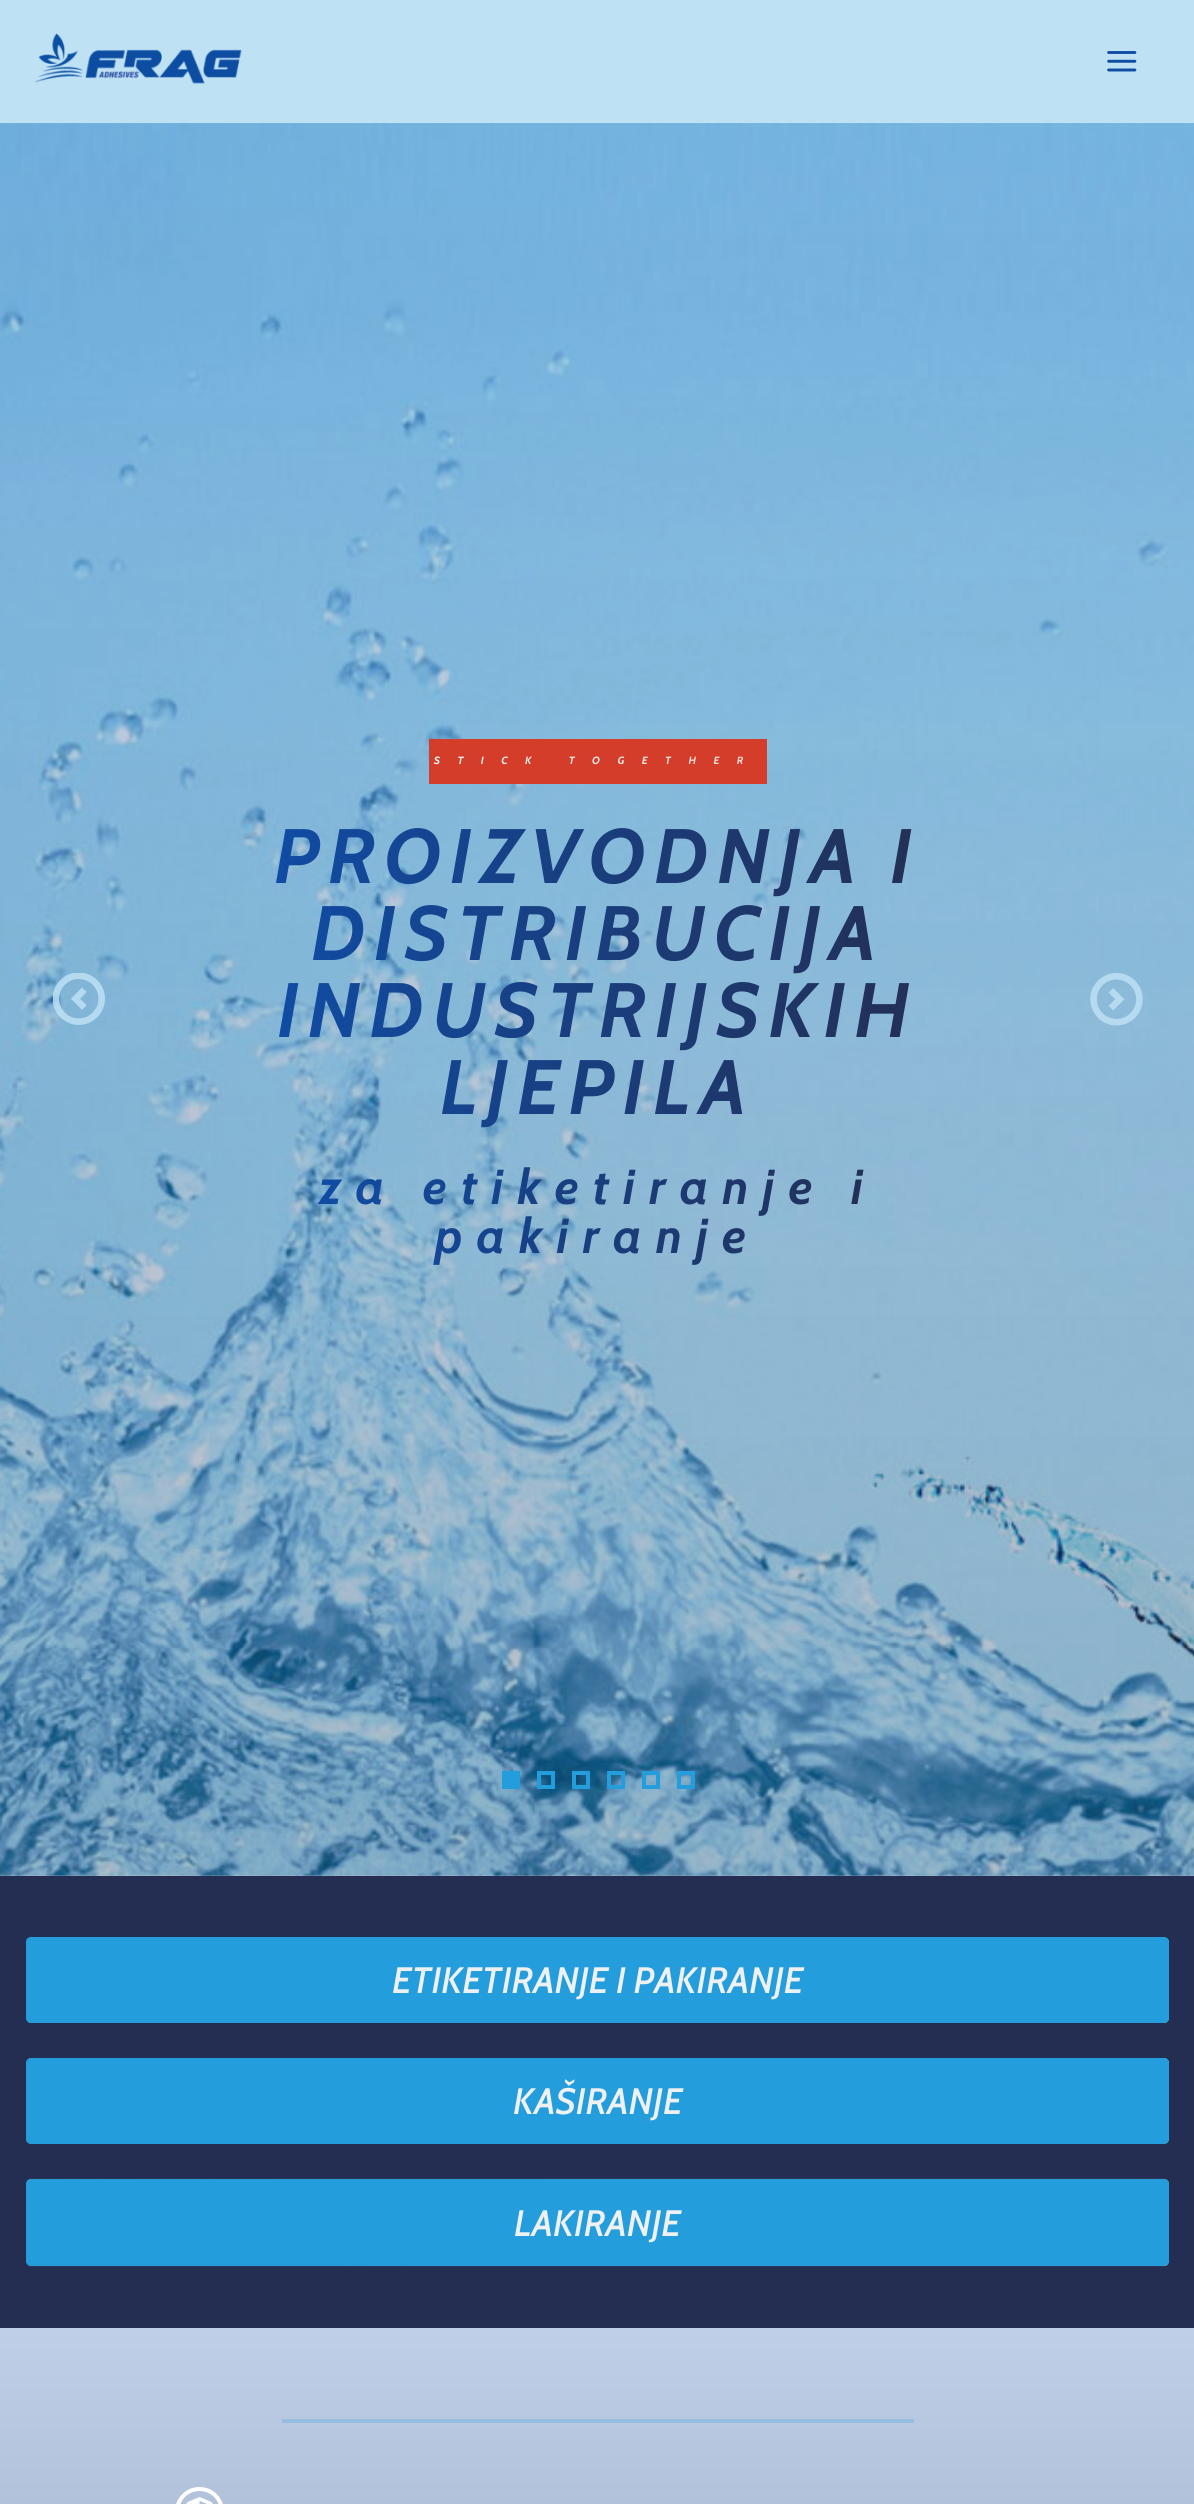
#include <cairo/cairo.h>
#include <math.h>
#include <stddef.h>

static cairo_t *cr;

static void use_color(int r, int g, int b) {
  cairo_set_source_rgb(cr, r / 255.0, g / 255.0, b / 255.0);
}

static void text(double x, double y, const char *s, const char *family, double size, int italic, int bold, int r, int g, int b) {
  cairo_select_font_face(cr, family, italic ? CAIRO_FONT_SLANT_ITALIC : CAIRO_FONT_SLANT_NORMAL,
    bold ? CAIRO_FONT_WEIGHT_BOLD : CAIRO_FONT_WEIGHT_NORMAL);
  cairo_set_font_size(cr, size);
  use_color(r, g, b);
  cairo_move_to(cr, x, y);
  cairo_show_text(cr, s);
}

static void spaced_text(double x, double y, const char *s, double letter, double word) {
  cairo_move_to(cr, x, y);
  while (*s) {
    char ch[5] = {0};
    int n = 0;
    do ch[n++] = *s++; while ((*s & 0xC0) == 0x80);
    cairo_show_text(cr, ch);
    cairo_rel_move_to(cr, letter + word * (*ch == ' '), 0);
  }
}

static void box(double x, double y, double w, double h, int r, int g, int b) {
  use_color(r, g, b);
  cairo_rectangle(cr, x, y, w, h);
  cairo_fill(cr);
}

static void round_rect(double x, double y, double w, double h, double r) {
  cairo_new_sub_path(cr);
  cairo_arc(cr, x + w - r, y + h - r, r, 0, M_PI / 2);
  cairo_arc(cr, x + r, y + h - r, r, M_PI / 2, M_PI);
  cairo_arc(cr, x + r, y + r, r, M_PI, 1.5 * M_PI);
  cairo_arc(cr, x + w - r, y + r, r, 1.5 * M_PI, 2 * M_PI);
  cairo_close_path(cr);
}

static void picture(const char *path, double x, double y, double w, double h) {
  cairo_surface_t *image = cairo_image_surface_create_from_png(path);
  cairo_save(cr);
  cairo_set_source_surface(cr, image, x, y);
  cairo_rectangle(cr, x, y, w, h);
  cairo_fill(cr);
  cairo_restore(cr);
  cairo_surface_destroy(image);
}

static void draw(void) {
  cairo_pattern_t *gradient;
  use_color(255, 255, 255);
  cairo_paint(cr);
  box(0, 0, 1194, 123, 190, 225, 244);
  picture("img_01.png", 35, 33, 207, 51);
  picture("img_02.png", 1107, 51, 30, 21);
  picture("img_04.png", 0, 123, 1194, 1753);
  gradient = cairo_pattern_create_linear(598, 122, 598, 1876);
  cairo_pattern_add_color_stop_rgba(gradient, 0, 0.063, 0.298, 0.643, 0.27);
  cairo_pattern_add_color_stop_rgba(gradient, 1, 0.141, 0.18, 0.322, 0.31);
  cairo_set_source(cr, gradient);
  cairo_pattern_destroy(gradient);
  cairo_rectangle(cr, 0, 123, 1194, 1753);
  cairo_fill(cr);
  picture("img_03.png", 53, 973, 52, 52);
  box(429, 739, 338, 45, 213, 61, 43);
  picture("img_05.png", 1090, 973, 53, 53);
  box(502, 1771, 18, 18, 35, 157, 219);
  cairo_rectangle(cr, 539, 1773, 14, 14);
  cairo_set_line_width(cr, 4);
  cairo_stroke(cr);
  cairo_rectangle(cr, 574, 1773, 14, 14);
  cairo_stroke(cr);
  cairo_rectangle(cr, 609, 1773, 14, 14);
  cairo_stroke(cr);
  cairo_rectangle(cr, 644, 1773, 14, 14);
  cairo_stroke(cr);
  cairo_rectangle(cr, 679, 1773, 14, 14);
  cairo_stroke(cr);
  box(0, 1876, 1194, 452, 36, 46, 82);
  picture("img_06.png", 26, 1937, 1143, 86);
  use_color(35, 157, 219);
  round_rect(26, 1937, 1143, 86, 5);
  cairo_fill(cr);
  picture("img_07.png", 26, 2058, 1143, 86);
  round_rect(26, 2058, 1143, 86, 5);
  cairo_fill(cr);
  picture("img_08.png", 26, 2178, 1143, 89);
  round_rect(26, 2179, 1143, 87, 5);
  cairo_fill(cr);
  gradient = cairo_pattern_create_linear(598, 2328, 598, 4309);
  cairo_pattern_add_color_stop_rgba(gradient, 0, 0.749, 0.812, 0.906, 1);
  cairo_pattern_add_color_stop_rgba(gradient, 1, 0.192, 0.231, 0.361, 1);
  cairo_set_source(cr, gradient);
  cairo_pattern_destroy(gradient);
  cairo_rectangle(cr, 0, 2328, 1194, 176);
  cairo_fill(cr);
  box(282, 2419, 632, 4, 150, 190, 223);
  round_rect(177, 2489, 45, 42, 22.5);
  use_color(255, 255, 255);
  cairo_stroke(cr);
  picture("img_09.png", 186, 2497, 27, 7);
  cairo_select_font_face(cr, "Cabin", CAIRO_FONT_SLANT_ITALIC, CAIRO_FONT_WEIGHT_BOLD);
  cairo_set_font_size(cr, 10.5);
  gradient = cairo_pattern_create_linear(434, 761, 761, 761);
  cairo_pattern_add_color_stop_rgba(gradient, 0, 1, 1, 1, 1);
  cairo_pattern_add_color_stop_rgba(gradient, 1, 0.969, 0.855, 0.843, 1);
  cairo_set_source(cr, gradient);
  cairo_pattern_destroy(gradient);
  spaced_text(434, 764, "STICK TOGETHER", 17.5, 0);
  cairo_set_font_size(cr, 77);
  gradient = cairo_pattern_create_linear(274, 972, 946, 972);
  cairo_pattern_add_color_stop_rgba(gradient, 0, 0.063, 0.298, 0.643, 1);
  cairo_pattern_add_color_stop_rgba(gradient, 1, 0.141, 0.18, 0.322, 1);
  cairo_set_source(cr, gradient);
  cairo_pattern_destroy(gradient);
  spaced_text(274, 883, "PROIZVODNJA I", 8.75, 0);
  spaced_text(311, 960, "DISTRIBUCIJA", 8.75, 0);
  spaced_text(277, 1037, "INDUSTRIJSKIH", 8.75, 0);
  spaced_text(440, 1114, "LJEPILA", 8.75, 0);
  cairo_set_font_size(cr, 49);
  gradient = cairo_pattern_create_linear(319, 1211, 901, 1211);
  cairo_pattern_add_color_stop_rgba(gradient, 0, 0.063, 0.298, 0.643, 1);
  cairo_pattern_add_color_stop_rgba(gradient, 1, 0.141, 0.18, 0.322, 1);
  cairo_set_source(cr, gradient);
  cairo_pattern_destroy(gradient);
  spaced_text(319, 1204, "za etiketiranje i", 14, 0);
  spaced_text(435, 1253, "pakiranje", 14, 0);
  text(392, 1993, "ETIKETIRANJE I PAKIRANJE", "Cabin Medium", 36.75, 1, 0, 238, 240, 242);
  text(513, 2114, "KAŠIRANJE", "Cabin Medium", 36.75, 1, 0, 238, 240, 242);
  text(514, 2236, "LAKIRANJE", "Cabin Medium", 36.75, 1, 0, 238, 240, 242);
}

int main(void) {
  cairo_surface_t *surface = cairo_image_surface_create(CAIRO_FORMAT_RGB24, 1194, 2504);
  cr = cairo_create(surface);
  cairo_font_options_t *options = cairo_font_options_create();
  cairo_font_options_set_hint_metrics(options, CAIRO_HINT_METRICS_OFF);
  cairo_font_options_set_hint_style(options, CAIRO_HINT_STYLE_NONE);
  cairo_set_font_options(cr, options);
  cairo_set_miter_limit(cr, 4);
  draw();
  cairo_surface_write_to_png(surface, "out.png");
  cairo_font_options_destroy(options);
  cairo_destroy(cr);
  cairo_surface_destroy(surface);
  return 0;
}
